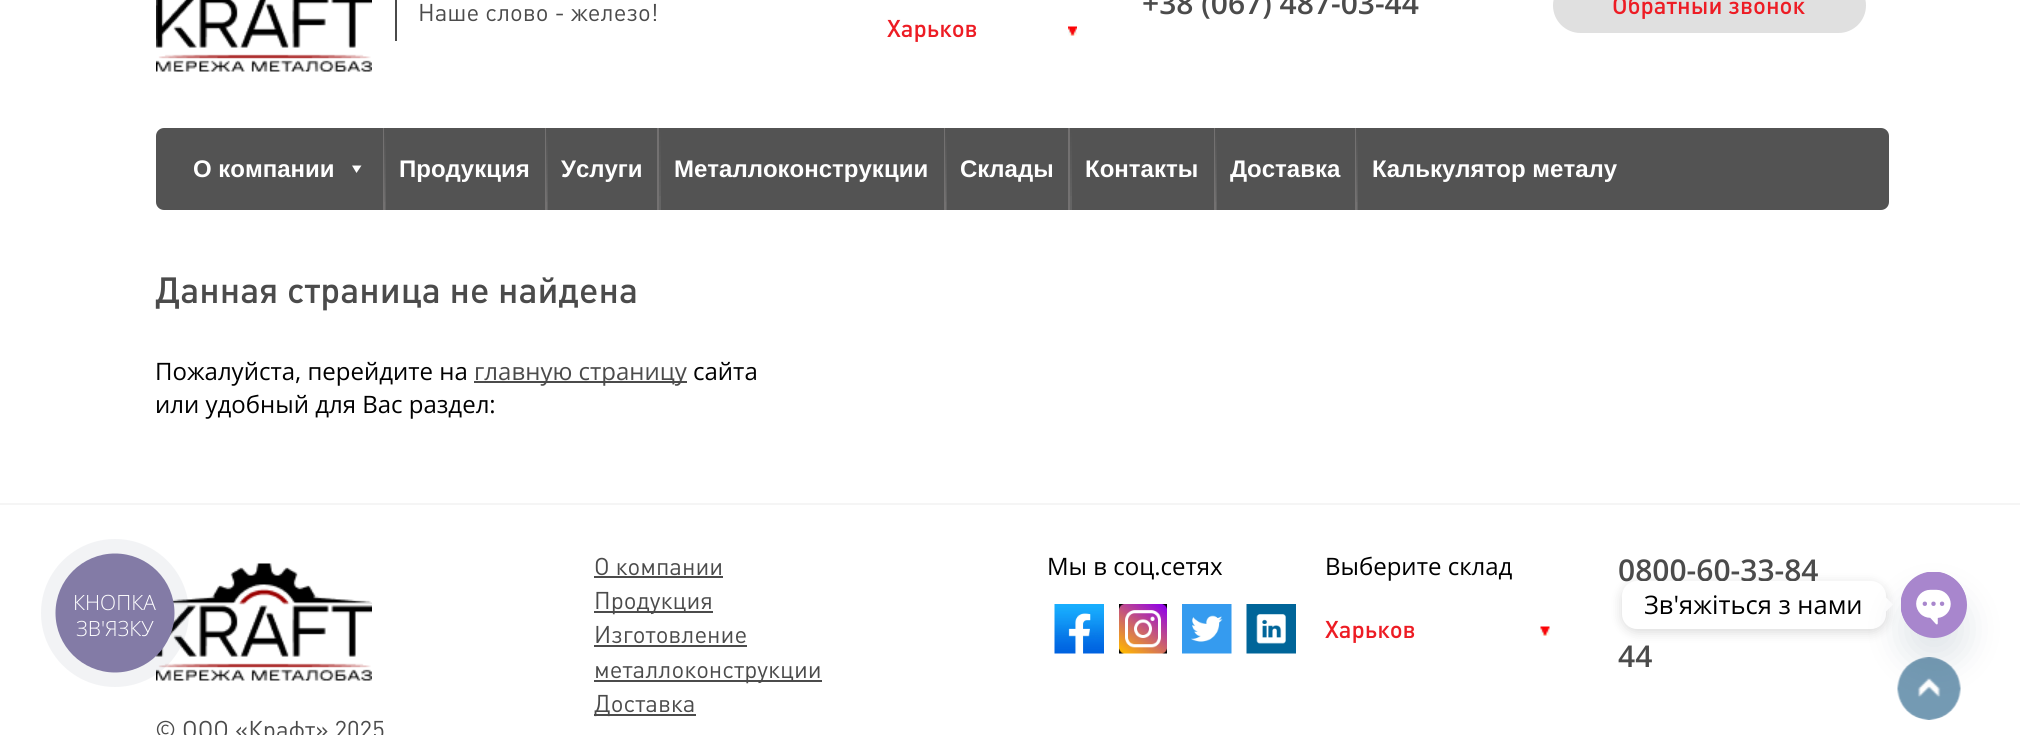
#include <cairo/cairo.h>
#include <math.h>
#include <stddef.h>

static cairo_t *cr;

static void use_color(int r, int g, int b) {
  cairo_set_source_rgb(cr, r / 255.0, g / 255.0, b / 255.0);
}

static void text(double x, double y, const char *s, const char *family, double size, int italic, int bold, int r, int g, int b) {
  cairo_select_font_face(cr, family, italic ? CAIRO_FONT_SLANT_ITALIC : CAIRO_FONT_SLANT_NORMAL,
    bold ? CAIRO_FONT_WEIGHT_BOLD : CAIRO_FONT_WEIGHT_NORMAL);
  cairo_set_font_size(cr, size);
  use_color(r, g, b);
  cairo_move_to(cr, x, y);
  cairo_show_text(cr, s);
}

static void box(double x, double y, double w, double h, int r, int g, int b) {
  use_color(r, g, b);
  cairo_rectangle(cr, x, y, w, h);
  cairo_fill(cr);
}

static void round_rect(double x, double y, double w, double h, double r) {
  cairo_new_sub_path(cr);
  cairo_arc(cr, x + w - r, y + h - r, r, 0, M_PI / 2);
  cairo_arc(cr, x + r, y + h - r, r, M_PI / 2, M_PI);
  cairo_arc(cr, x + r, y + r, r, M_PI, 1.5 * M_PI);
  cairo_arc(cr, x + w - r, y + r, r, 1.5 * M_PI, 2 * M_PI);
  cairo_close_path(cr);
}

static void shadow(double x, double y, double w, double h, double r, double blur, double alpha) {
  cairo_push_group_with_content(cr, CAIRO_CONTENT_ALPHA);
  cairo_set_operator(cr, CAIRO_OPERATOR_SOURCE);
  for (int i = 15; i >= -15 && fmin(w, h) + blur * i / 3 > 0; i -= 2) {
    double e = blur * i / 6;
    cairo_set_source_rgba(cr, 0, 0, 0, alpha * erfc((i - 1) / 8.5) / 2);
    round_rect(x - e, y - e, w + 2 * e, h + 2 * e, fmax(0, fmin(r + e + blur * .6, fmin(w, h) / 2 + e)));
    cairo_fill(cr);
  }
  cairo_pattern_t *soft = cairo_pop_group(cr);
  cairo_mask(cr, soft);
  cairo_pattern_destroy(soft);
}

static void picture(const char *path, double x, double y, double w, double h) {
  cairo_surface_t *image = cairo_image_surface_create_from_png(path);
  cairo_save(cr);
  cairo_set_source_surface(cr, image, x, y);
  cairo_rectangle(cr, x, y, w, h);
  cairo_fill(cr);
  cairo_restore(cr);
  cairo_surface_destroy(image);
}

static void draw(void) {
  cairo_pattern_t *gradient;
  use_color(255, 255, 255);
  cairo_paint(cr);
  picture("img_01.png", 156, 0, 216, 72);
  box(395, 0, 2, 41, 74, 74, 74);
  use_color(224, 224, 224);
  round_rect(1553, -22, 313, 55, 27.5);
  cairo_fill(cr);
  picture("img_02.png", 1068, 26, 9, 10);
  use_color(83, 83, 83);
  round_rect(156, 128, 1710, 82, 8);
  cairo_fill(cr);
  round_rect(179, 128, 1710, 82, 8);
  cairo_fill(cr);
  use_color(255, 255, 255);
  cairo_new_path(cr);
  cairo_move_to(cr, 361.5, 165.5);
  cairo_line_to(cr, 356.5, 173);
  cairo_line_to(cr, 352, 165.5);
  cairo_close_path(cr);
  cairo_fill(cr);
  box(385, 128, 1, 82, 100, 100, 100);
  box(383, 128, 2, 82, 115, 113, 113);
  gradient = cairo_pattern_create_linear(464, 128, 464, 210);
  cairo_pattern_add_color_stop_rgba(gradient, 0, 0.325, 0.325, 0.325, 1);
  cairo_pattern_add_color_stop_rgba(gradient, 1, 0.325, 0.325, 0.325, 0);
  cairo_set_source(cr, gradient);
  cairo_pattern_destroy(gradient);
  cairo_rectangle(cr, 384, 128, 2, 74);
  cairo_fill(cr);
  box(547, 128, 1, 82, 100, 100, 100);
  box(545, 128, 2, 82, 115, 113, 113);
  gradient = cairo_pattern_create_linear(602, 128, 602, 210);
  cairo_pattern_add_color_stop_rgba(gradient, 0, 0.325, 0.325, 0.325, 1);
  cairo_pattern_add_color_stop_rgba(gradient, 1, 0.325, 0.325, 0.325, 0);
  cairo_set_source(cr, gradient);
  cairo_pattern_destroy(gradient);
  cairo_rectangle(cr, 546, 128, 2, 74);
  cairo_fill(cr);
  box(659, 128, 2, 82, 100, 100, 100);
  box(657, 128, 2, 82, 115, 113, 113);
  gradient = cairo_pattern_create_linear(801, 127, 801, 210);
  cairo_pattern_add_color_stop_rgba(gradient, 0, 0.325, 0.325, 0.325, 1);
  cairo_pattern_add_color_stop_rgba(gradient, 1, 0.325, 0.325, 0.325, 0);
  cairo_set_source(cr, gradient);
  cairo_pattern_destroy(gradient);
  cairo_rectangle(cr, 659, 128, 2, 68);
  cairo_fill(cr);
  box(946, 128, 1, 82, 100, 100, 100);
  box(944, 128, 2, 82, 115, 113, 113);
  gradient = cairo_pattern_create_linear(1007, 128, 1007, 210);
  cairo_pattern_add_color_stop_rgba(gradient, 0, 0.325, 0.325, 0.325, 1);
  cairo_pattern_add_color_stop_rgba(gradient, 1, 0.325, 0.325, 0.325, 0);
  cairo_set_source(cr, gradient);
  cairo_pattern_destroy(gradient);
  cairo_rectangle(cr, 945, 128, 2, 74);
  cairo_fill(cr);
  box(1070, 128, 2, 82, 100, 100, 100);
  box(1068, 128, 2, 82, 115, 113, 113);
  gradient = cairo_pattern_create_linear(1142, 128, 1142, 210);
  cairo_pattern_add_color_stop_rgba(gradient, 0, 0.325, 0.325, 0.325, 1);
  cairo_pattern_add_color_stop_rgba(gradient, 1, 0.325, 0.325, 0.325, 0);
  cairo_set_source(cr, gradient);
  cairo_pattern_destroy(gradient);
  cairo_rectangle(cr, 1070, 128, 2, 68);
  cairo_fill(cr);
  box(1216, 128, 1, 82, 100, 100, 100);
  box(1214, 128, 2, 82, 115, 113, 113);
  gradient = cairo_pattern_create_linear(1285, 128, 1285, 210);
  cairo_pattern_add_color_stop_rgba(gradient, 0, 0.325, 0.325, 0.325, 1);
  cairo_pattern_add_color_stop_rgba(gradient, 1, 0.325, 0.325, 0.325, 0);
  cairo_set_source(cr, gradient);
  cairo_pattern_destroy(gradient);
  cairo_rectangle(cr, 1215, 128, 2, 74);
  cairo_fill(cr);
  box(1357, 128, 1, 82, 100, 100, 100);
  box(1355, 128, 2, 82, 115, 113, 113);
  gradient = cairo_pattern_create_linear(1494, 127, 1494, 210);
  cairo_pattern_add_color_stop_rgba(gradient, 0, 0.325, 0.325, 0.325, 1);
  cairo_pattern_add_color_stop_rgba(gradient, 1, 0.325, 0.325, 0.325, 0);
  cairo_set_source(cr, gradient);
  cairo_pattern_destroy(gradient);
  cairo_rectangle(cr, 1356, 128, 2, 74);
  cairo_fill(cr);
  box(474, 381, 213, 2, 75, 75, 75);
  picture("img_08.png", 156, 563, 216, 118);
  cairo_set_source_rgba(cr, 0.165, 0.251, 0.365, 0.06);
  cairo_arc(cr, 115, 613, 74, 0, 2 * M_PI);
  cairo_fill(cr);
  use_color(131, 123, 166);
  cairo_arc(cr, 115, 613, 59.5, 0, 2 * M_PI);
  cairo_fill(cr);
  box(0, 503, 2020, 2, 245, 245, 245);
  box(594, 576, 129, 2, 75, 75, 75);
  box(594, 611, 119, 2, 75, 75, 75);
  box(594, 645, 153, 2, 75, 75, 75);
  box(594, 680, 228, 2, 75, 75, 75);
  box(594, 714, 102, 2, 75, 75, 75);
  picture("img_03.png", 1054, 604, 50, 50);
  picture("img_04.png", 1119, 604, 48, 50);
  picture("img_05.png", 1182, 604, 50, 50);
  picture("img_06.png", 1246, 604, 50, 50);
  picture("img_07.png", 1540, 626, 10, 10);
  use_color(0, 0, 0);
  shadow(1622, 584, 264, 48, 15, 6, 0.15);
  picture("img_10.png", 1897, 657, 64, 63);
  text(418, 21, "Наше слово - железо!", "DIN", 24, 0, 0, 75, 75, 75);
  text(1142, 14, "+38 (067) 487-03-44", "Open Sans SemiBold", 30, 0, 0, 75, 75, 75);
  text(1612, 14, "Обратный звонок", "DIN Medium", 24, 0, 0, 237, 28, 36);
  text(887, 37, "Харьков", "DIN Medium", 24, 0, 0, 237, 28, 36);
  text(193, 177, "О компании", "Liberation Sans", 24, 0, 1, 255, 255, 255);
  text(399, 177, "Продукция", "Liberation Sans", 24, 0, 1, 255, 255, 255);
  text(561, 177, "Услуги", "Liberation Sans", 24, 0, 1, 255, 255, 255);
  text(674, 177, "Металлоконструкции", "Liberation Sans", 24, 0, 1, 255, 255, 255);
  text(960, 177, "Склады", "Liberation Sans", 24, 0, 1, 255, 255, 255);
  text(1085, 177, "Контакты", "Liberation Sans", 24, 0, 1, 255, 255, 255);
  text(1230, 177, "Доставка", "Liberation Sans", 24, 0, 1, 255, 255, 255);
  text(1372, 177, "Калькулятор металу", "Liberation Sans", 24, 0, 1, 255, 255, 255);
  text(155, 303, "Данная страница не найдена", "DIN Medium", 36, 0, 0, 75, 75, 75);
  text(155, 380, "Пожалуйста, перейдите на", "Open Sans", 24, 0, 0, 0, 0, 0);
  text(474, 380, "главную страницу", "Open Sans", 24, 0, 0, 75, 75, 75);
  text(693, 380, "сайта", "Open Sans", 24, 0, 0, 0, 0, 0);
  text(155, 413, "или удобный для Вас раздел:", "Open Sans", 24, 0, 0, 0, 0, 0);
  text(73, 610, "КНОПКА", "Open Sans Light", 21, 0, 0, 255, 255, 255);
  text(76, 636, "ЗВ'ЯЗКУ", "Open Sans Light", 21, 0, 0, 255, 255, 255);
  text(594, 575, "О компании", "DIN", 24, 0, 0, 75, 75, 75);
  text(594, 609, "Продукция", "DIN", 24, 0, 0, 75, 75, 75);
  text(594, 643, "Изготовление", "DIN", 24, 0, 0, 75, 75, 75);
  text(594, 678, "металлоконструкции", "DIN", 24, 0, 0, 75, 75, 75);
  text(594, 712, "Доставка", "DIN", 24, 0, 0, 75, 75, 75);
  text(1047, 575, "Мы в соц.сетях", "Open Sans", 24, 0, 0, 0, 0, 0);
  text(1325, 575, "Выберите склад", "Open Sans", 24, 0, 0, 0, 0, 0);
  text(1325, 638, "Харьков", "DIN Medium", 24, 0, 0, 237, 28, 36);
  text(1618, 581, "0800-60-33-84", "Open Sans SemiBold", 30, 0, 0, 75, 75, 75);
  text(1618, 667, "44", "Open Sans SemiBold", 30, 0, 0, 75, 75, 75);
  text(155, 738, "© ООО «Крафт» 2025", "DIN", 24, 0, 0, 75, 75, 75);
  use_color(255, 255, 255);
  round_rect(1622, 581, 264, 48, 15);
  cairo_fill(cr);
  text(1644, 614, "Зв'яжіться з нами", "Open Sans", 25.5, 0, 0, 0, 0, 0);
  use_color(255, 255, 255);
  cairo_new_path(cr);
  cairo_move_to(cr, 1885.5, 612);
  cairo_line_to(cr, 1885.5, 597);
  cairo_line_to(cr, 1893, 604.5);
  cairo_close_path(cr);
  cairo_fill(cr);
  use_color(73, 104, 126);
  shadow(1901, 596, 66, 66, 33, 18, 0.16);
  use_color(168, 134, 205);
  cairo_arc(cr, 1934, 605, 33, 0, 2 * M_PI);
  cairo_fill(cr);
  picture("img_09.png", 1901, 572, 65, 63);
}

int main(void) {
  cairo_surface_t *surface = cairo_image_surface_create(CAIRO_FORMAT_RGB24, 2020, 735);
  cr = cairo_create(surface);
  cairo_font_options_t *options = cairo_font_options_create();
  cairo_font_options_set_hint_metrics(options, CAIRO_HINT_METRICS_OFF);
  cairo_font_options_set_hint_style(options, CAIRO_HINT_STYLE_NONE);
  cairo_set_font_options(cr, options);
  cairo_set_miter_limit(cr, 4);
  draw();
  cairo_surface_write_to_png(surface, "out.png");
  cairo_font_options_destroy(options);
  cairo_destroy(cr);
  cairo_surface_destroy(surface);
  return 0;
}
